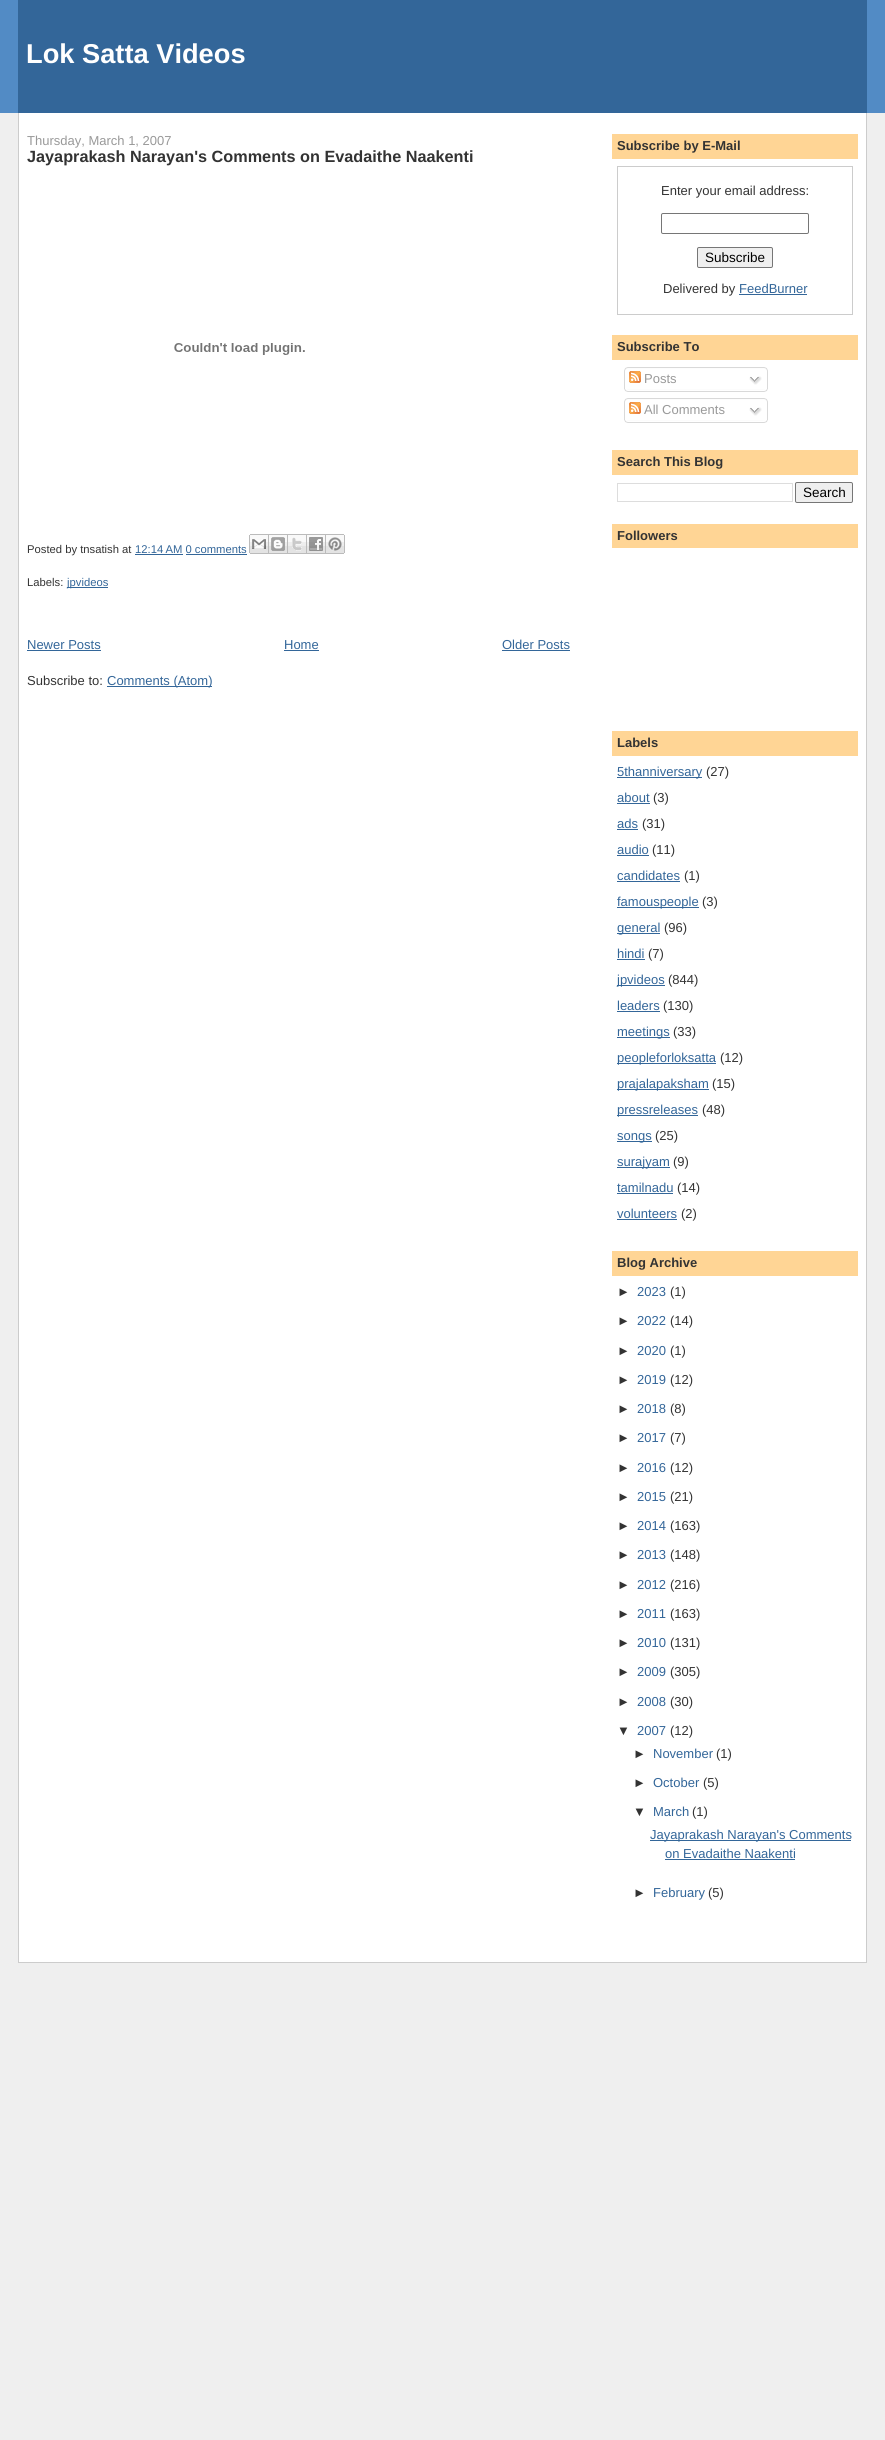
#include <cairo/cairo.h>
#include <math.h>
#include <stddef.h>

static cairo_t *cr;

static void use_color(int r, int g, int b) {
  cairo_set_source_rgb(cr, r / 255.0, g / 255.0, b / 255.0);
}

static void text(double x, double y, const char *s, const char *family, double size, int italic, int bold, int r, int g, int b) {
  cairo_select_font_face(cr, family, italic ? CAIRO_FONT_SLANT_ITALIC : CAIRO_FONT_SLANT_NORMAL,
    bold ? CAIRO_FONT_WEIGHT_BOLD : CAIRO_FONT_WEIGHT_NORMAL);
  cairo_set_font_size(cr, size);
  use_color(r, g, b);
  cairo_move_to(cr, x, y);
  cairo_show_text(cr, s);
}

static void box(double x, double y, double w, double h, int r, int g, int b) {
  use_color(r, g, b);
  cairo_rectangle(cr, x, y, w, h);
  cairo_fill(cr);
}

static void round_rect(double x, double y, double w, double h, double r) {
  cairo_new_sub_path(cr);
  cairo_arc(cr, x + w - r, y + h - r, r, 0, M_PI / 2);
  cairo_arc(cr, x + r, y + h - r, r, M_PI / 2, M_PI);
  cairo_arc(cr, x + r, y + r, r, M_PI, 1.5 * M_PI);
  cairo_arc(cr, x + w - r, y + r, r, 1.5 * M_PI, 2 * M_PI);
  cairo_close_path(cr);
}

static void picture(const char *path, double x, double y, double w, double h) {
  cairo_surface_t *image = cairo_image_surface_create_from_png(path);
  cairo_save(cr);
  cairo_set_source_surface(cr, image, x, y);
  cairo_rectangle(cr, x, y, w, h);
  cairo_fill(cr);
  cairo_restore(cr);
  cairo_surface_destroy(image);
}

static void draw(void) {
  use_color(239, 239, 239);
  cairo_paint(cr);
  box(0, 0, 885, 113, 82, 139, 197);
  box(18, 0, 849, 113, 51, 102, 153);
  box(19, 113, 847, 1849, 255, 255, 255);
  box(866, 113, 1, 1850, 204, 204, 204);
  box(18, 1962, 849, 1, 204, 204, 204);
  box(18, 113, 1, 1850, 204, 204, 204);
  picture("img_01.png", 174, 343, 131, 12);
  box(135, 554, 48, 1, 51, 102, 153);
  picture("img_02.png", 249, 534, 20, 20);
  picture("img_03.png", 269, 534, 19, 20);
  picture("img_04.png", 288, 534, 19, 20);
  picture("img_05.png", 307, 534, 19, 20);
  picture("img_06.png", 326, 534, 19, 20);
  box(186, 554, 61, 1, 51, 102, 153);
  box(67, 587, 41, 1, 51, 102, 153);
  box(27, 650, 74, 1, 51, 102, 153);
  box(284, 650, 35, 1, 51, 102, 153);
  box(502, 650, 68, 1, 51, 102, 153);
  box(107, 686, 105, 1, 51, 102, 153);
  box(612, 134, 246, 25, 255, 213, 149);
  cairo_rectangle(cr, 617.5, 166.5, 235, 148);
  use_color(204, 204, 204);
  cairo_set_line_width(cr, 1);
  cairo_stroke(cr);
  round_rect(661.5, 213.5, 147, 20, 1.5);
  use_color(118, 118, 118);
  cairo_stroke(cr);
  use_color(239, 239, 239);
  round_rect(697.5, 247.5, 75, 20, 1.5);
  cairo_fill_preserve(cr);
  use_color(118, 118, 118);
  cairo_stroke(cr);
  box(739, 294, 68, 1, 51, 102, 153);
  box(612, 335, 246, 25, 255, 213, 149);
  picture("img_07.png", 624, 367, 144, 22);
  picture("img_08.png", 629, 371, 12, 12);
  picture("img_09.png", 749, 376, 13, 9);
  picture("img_10.png", 624, 389, 144, 3);
  picture("img_07.png", 624, 398, 144, 22);
  picture("img_08.png", 629, 402, 12, 12);
  picture("img_09.png", 749, 407, 13, 9);
  picture("img_10.png", 624, 420, 144, 3);
  box(612, 450, 246, 25, 255, 213, 149);
  cairo_rectangle(cr, 617.5, 483.5, 175, 18);
  use_color(221, 221, 221);
  cairo_stroke(cr);
  use_color(239, 239, 239);
  round_rect(795.5, 482.5, 57, 20, 1.5);
  cairo_fill_preserve(cr);
  use_color(118, 118, 118);
  cairo_stroke(cr);
  box(612, 524, 246, 24, 255, 213, 149);
  box(612, 731, 246, 25, 255, 213, 149);
  box(617, 777, 85, 1, 51, 102, 153);
  box(617, 803, 33, 1, 51, 102, 153);
  box(617, 829, 21, 1, 51, 102, 153);
  box(617, 855, 32, 1, 51, 102, 153);
  box(617, 881, 63, 1, 51, 102, 153);
  box(617, 907, 82, 1, 51, 102, 153);
  box(617, 933, 43, 1, 51, 102, 153);
  box(617, 959, 28, 1, 51, 102, 153);
  box(617, 985, 48, 1, 51, 102, 153);
  box(617, 1011, 43, 1, 51, 102, 153);
  box(617, 1037, 53, 1, 51, 102, 153);
  box(617, 1063, 99, 1, 51, 102, 153);
  box(617, 1089, 92, 1, 51, 102, 153);
  box(617, 1115, 81, 1, 51, 102, 153);
  box(617, 1141, 35, 1, 51, 102, 153);
  box(617, 1167, 53, 1, 51, 102, 153);
  box(617, 1193, 56, 1, 51, 102, 153);
  box(617, 1219, 60, 1, 51, 102, 153);
  box(612, 1251, 246, 25, 255, 213, 149);
  box(650, 1840, 201, 1, 51, 102, 153);
  box(665, 1859, 130, 1, 51, 102, 153);
  text(26, 63, "Lok Satta Videos", "Liberation Sans", 27.25, 0, 1, 255, 255, 255);
  text(27, 145, "Thursday, March 1, 2007", "Liberation Sans", 13, 0, 0, 153, 153, 153);
  text(27, 162, "Jayaprakash Narayan's Comments on Evadaithe Naakenti", "Liberation Sans", 16.25, 0, 1, 51, 51, 51);
  text(27, 553, "Posted by tnsatish at", "Liberation Sans", 11.25, 0, 0, 51, 51, 51);
  text(135, 553, "12:14 AM 0 comments", "Liberation Sans", 11.25, 0, 0, 51, 102, 153);
  text(27, 586, "Labels:", "Liberation Sans", 11.25, 0, 0, 51, 51, 51);
  text(67, 586, "jpvideos", "Liberation Sans", 11.25, 0, 0, 51, 102, 153);
  text(27, 649, "Newer Posts", "Liberation Sans", 13, 0, 0, 51, 102, 153);
  text(284, 649, "Home", "Liberation Sans", 13, 0, 0, 51, 102, 153);
  text(502, 649, "Older Posts", "Liberation Sans", 13, 0, 0, 51, 102, 153);
  text(27, 685, "Subscribe to:", "Liberation Sans", 13, 0, 0, 51, 51, 51);
  text(107, 685, "Comments (Atom)", "Liberation Sans", 13, 0, 0, 51, 102, 153);
  text(617, 150, "Subscribe by E-Mail", "Liberation Sans", 13, 0, 1, 51, 51, 51);
  text(661, 195, "Enter your email address:", "Liberation Sans", 13, 0, 0, 51, 51, 51);
  text(705, 262, "Subscribe", "Liberation Sans", 13.5, 0, 0, 0, 0, 0);
  text(663, 293, "Delivered by", "Liberation Sans", 13, 0, 0, 51, 51, 51);
  text(739, 293, "FeedBurner", "Liberation Sans", 13, 0, 0, 51, 102, 153);
  text(617, 351, "Subscribe To", "Liberation Sans", 13, 0, 1, 51, 51, 51);
  text(644, 383, "Posts", "Liberation Sans", 13, 0, 0, 153, 153, 153);
  text(644, 414, "All Comments", "Liberation Sans", 13, 0, 0, 153, 153, 153);
  text(617, 466, "Search This Blog", "Liberation Sans", 13, 0, 1, 51, 51, 51);
  text(803, 497, "Search", "Liberation Sans", 13.5, 0, 0, 0, 0, 0);
  text(617, 540, "Followers", "Liberation Sans", 13, 0, 1, 51, 51, 51);
  text(617, 747, "Labels", "Liberation Sans", 13, 0, 1, 51, 51, 51);
  text(617, 776, "5thanniversary", "Liberation Sans", 13, 0, 0, 51, 102, 153);
  text(706, 776, "(27)", "Liberation Sans", 13, 0, 0, 51, 51, 51);
  text(617, 802, "about", "Liberation Sans", 13, 0, 0, 51, 102, 153);
  text(653, 802, "(3)", "Liberation Sans", 13, 0, 0, 51, 51, 51);
  text(617, 828, "ads", "Liberation Sans", 13, 0, 0, 51, 102, 153);
  text(642, 828, "(31)", "Liberation Sans", 13, 0, 0, 51, 51, 51);
  text(617, 854, "audio", "Liberation Sans", 13, 0, 0, 51, 102, 153);
  text(652, 854, "(11)", "Liberation Sans", 13, 0, 0, 51, 51, 51);
  text(617, 880, "candidates", "Liberation Sans", 13, 0, 0, 51, 102, 153);
  text(684, 880, "(1)", "Liberation Sans", 13, 0, 0, 51, 51, 51);
  text(617, 906, "famouspeople", "Liberation Sans", 13, 0, 0, 51, 102, 153);
  text(702, 906, "(3)", "Liberation Sans", 13, 0, 0, 51, 51, 51);
  text(617, 932, "general", "Liberation Sans", 13, 0, 0, 51, 102, 153);
  text(664, 932, "(96)", "Liberation Sans", 13, 0, 0, 51, 51, 51);
  text(617, 958, "hindi", "Liberation Sans", 13, 0, 0, 51, 102, 153);
  text(648, 958, "(7)", "Liberation Sans", 13, 0, 0, 51, 51, 51);
  text(617, 984, "jpvideos", "Liberation Sans", 13, 0, 0, 51, 102, 153);
  text(668, 984, "(844)", "Liberation Sans", 13, 0, 0, 51, 51, 51);
  text(617, 1010, "leaders", "Liberation Sans", 13, 0, 0, 51, 102, 153);
  text(663, 1010, "(130)", "Liberation Sans", 13, 0, 0, 51, 51, 51);
  text(617, 1036, "meetings", "Liberation Sans", 13, 0, 0, 51, 102, 153);
  text(673, 1036, "(33)", "Liberation Sans", 13, 0, 0, 51, 51, 51);
  text(617, 1062, "peopleforloksatta", "Liberation Sans", 13, 0, 0, 51, 102, 153);
  text(720, 1062, "(12)", "Liberation Sans", 13, 0, 0, 51, 51, 51);
  text(617, 1088, "prajalapaksham", "Liberation Sans", 13, 0, 0, 51, 102, 153);
  text(712, 1088, "(15)", "Liberation Sans", 13, 0, 0, 51, 51, 51);
  text(617, 1114, "pressreleases", "Liberation Sans", 13, 0, 0, 51, 102, 153);
  text(702, 1114, "(48)", "Liberation Sans", 13, 0, 0, 51, 51, 51);
  text(617, 1140, "songs", "Liberation Sans", 13, 0, 0, 51, 102, 153);
  text(655, 1140, "(25)", "Liberation Sans", 13, 0, 0, 51, 51, 51);
  text(617, 1166, "surajyam", "Liberation Sans", 13, 0, 0, 51, 102, 153);
  text(673, 1166, "(9)", "Liberation Sans", 13, 0, 0, 51, 51, 51);
  text(617, 1192, "tamilnadu", "Liberation Sans", 13, 0, 0, 51, 102, 153);
  text(677, 1192, "(14)", "Liberation Sans", 13, 0, 0, 51, 51, 51);
  text(617, 1218, "volunteers", "Liberation Sans", 13, 0, 0, 51, 102, 153);
  text(681, 1218, "(2)", "Liberation Sans", 13, 0, 0, 51, 51, 51);
  text(617, 1267, "Blog Archive", "Liberation Sans", 13, 0, 1, 51, 51, 51);
  text(617, 1296, "►", "Liberation Sans", 13, 0, 0, 51, 51, 51);
  text(637, 1296, "2023", "Liberation Sans", 13, 0, 0, 51, 102, 153);
  text(670, 1296, "(1)", "Liberation Sans", 13, 0, 0, 51, 51, 51);
  text(617, 1325, "►", "Liberation Sans", 13, 0, 0, 51, 51, 51);
  text(637, 1325, "2022", "Liberation Sans", 13, 0, 0, 51, 102, 153);
  text(670, 1325, "(14)", "Liberation Sans", 13, 0, 0, 51, 51, 51);
  text(617, 1355, "►", "Liberation Sans", 13, 0, 0, 51, 51, 51);
  text(637, 1355, "2020", "Liberation Sans", 13, 0, 0, 51, 102, 153);
  text(670, 1355, "(1)", "Liberation Sans", 13, 0, 0, 51, 51, 51);
  text(617, 1384, "►", "Liberation Sans", 13, 0, 0, 51, 51, 51);
  text(637, 1384, "2019", "Liberation Sans", 13, 0, 0, 51, 102, 153);
  text(670, 1384, "(12)", "Liberation Sans", 13, 0, 0, 51, 51, 51);
  text(617, 1413, "►", "Liberation Sans", 13, 0, 0, 51, 51, 51);
  text(637, 1413, "2018", "Liberation Sans", 13, 0, 0, 51, 102, 153);
  text(670, 1413, "(8)", "Liberation Sans", 13, 0, 0, 51, 51, 51);
  text(617, 1442, "►", "Liberation Sans", 13, 0, 0, 51, 51, 51);
  text(637, 1442, "2017", "Liberation Sans", 13, 0, 0, 51, 102, 153);
  text(670, 1442, "(7)", "Liberation Sans", 13, 0, 0, 51, 51, 51);
  text(617, 1472, "►", "Liberation Sans", 13, 0, 0, 51, 51, 51);
  text(637, 1472, "2016", "Liberation Sans", 13, 0, 0, 51, 102, 153);
  text(670, 1472, "(12)", "Liberation Sans", 13, 0, 0, 51, 51, 51);
  text(617, 1501, "►", "Liberation Sans", 13, 0, 0, 51, 51, 51);
  text(637, 1501, "2015", "Liberation Sans", 13, 0, 0, 51, 102, 153);
  text(670, 1501, "(21)", "Liberation Sans", 13, 0, 0, 51, 51, 51);
  text(617, 1530, "►", "Liberation Sans", 13, 0, 0, 51, 51, 51);
  text(637, 1530, "2014", "Liberation Sans", 13, 0, 0, 51, 102, 153);
  text(670, 1530, "(163)", "Liberation Sans", 13, 0, 0, 51, 51, 51);
  text(617, 1559, "►", "Liberation Sans", 13, 0, 0, 51, 51, 51);
  text(637, 1559, "2013", "Liberation Sans", 13, 0, 0, 51, 102, 153);
  text(670, 1559, "(148)", "Liberation Sans", 13, 0, 0, 51, 51, 51);
  text(617, 1589, "►", "Liberation Sans", 13, 0, 0, 51, 51, 51);
  text(637, 1589, "2012", "Liberation Sans", 13, 0, 0, 51, 102, 153);
  text(670, 1589, "(216)", "Liberation Sans", 13, 0, 0, 51, 51, 51);
  text(617, 1618, "►", "Liberation Sans", 13, 0, 0, 51, 51, 51);
  text(637, 1618, "2011", "Liberation Sans", 13, 0, 0, 51, 102, 153);
  text(670, 1618, "(163)", "Liberation Sans", 13, 0, 0, 51, 51, 51);
  text(617, 1647, "►", "Liberation Sans", 13, 0, 0, 51, 51, 51);
  text(637, 1647, "2010", "Liberation Sans", 13, 0, 0, 51, 102, 153);
  text(670, 1647, "(131)", "Liberation Sans", 13, 0, 0, 51, 51, 51);
  text(617, 1676, "►", "Liberation Sans", 13, 0, 0, 51, 51, 51);
  text(637, 1676, "2009", "Liberation Sans", 13, 0, 0, 51, 102, 153);
  text(670, 1676, "(305)", "Liberation Sans", 13, 0, 0, 51, 51, 51);
  text(617, 1706, "►", "Liberation Sans", 13, 0, 0, 51, 51, 51);
  text(637, 1706, "2008", "Liberation Sans", 13, 0, 0, 51, 102, 153);
  text(670, 1706, "(30)", "Liberation Sans", 13, 0, 0, 51, 51, 51);
  text(617, 1735, "▼", "Liberation Sans", 13, 0, 0, 51, 51, 51);
  text(637, 1735, "2007", "Liberation Sans", 13, 0, 0, 51, 102, 153);
  text(670, 1735, "(12)", "Liberation Sans", 13, 0, 0, 51, 51, 51);
  text(633, 1758, "►", "Liberation Sans", 13, 0, 0, 51, 51, 51);
  text(653, 1758, "November", "Liberation Sans", 13, 0, 0, 51, 102, 153);
  text(716, 1758, "(1)", "Liberation Sans", 13, 0, 0, 51, 51, 51);
  text(633, 1787, "►", "Liberation Sans", 13, 0, 0, 51, 51, 51);
  text(653, 1787, "October", "Liberation Sans", 13, 0, 0, 51, 102, 153);
  text(703, 1787, "(5)", "Liberation Sans", 13, 0, 0, 51, 51, 51);
  text(633, 1816, "▼", "Liberation Sans", 13, 0, 0, 51, 51, 51);
  text(653, 1816, "March", "Liberation Sans", 13, 0, 0, 51, 102, 153);
  text(692, 1816, "(1)", "Liberation Sans", 13, 0, 0, 51, 51, 51);
  text(650, 1839, "Jayaprakash Narayan's Comments", "Liberation Sans", 13, 0, 0, 51, 102, 153);
  text(665, 1858, "on Evadaithe Naakenti", "Liberation Sans", 13, 0, 0, 51, 102, 153);
  text(633, 1897, "►", "Liberation Sans", 13, 0, 0, 51, 51, 51);
  text(653, 1897, "February", "Liberation Sans", 13, 0, 0, 51, 102, 153);
  text(708, 1897, "(5)", "Liberation Sans", 13, 0, 0, 51, 51, 51);
}

int main(void) {
  cairo_surface_t *surface = cairo_image_surface_create(CAIRO_FORMAT_RGB24, 885, 2440);
  cr = cairo_create(surface);
  cairo_font_options_t *options = cairo_font_options_create();
  cairo_font_options_set_hint_metrics(options, CAIRO_HINT_METRICS_OFF);
  cairo_font_options_set_hint_style(options, CAIRO_HINT_STYLE_NONE);
  cairo_set_font_options(cr, options);
  cairo_set_miter_limit(cr, 4);
  draw();
  cairo_surface_write_to_png(surface, "out.png");
  cairo_font_options_destroy(options);
  cairo_destroy(cr);
  cairo_surface_destroy(surface);
  return 0;
}
